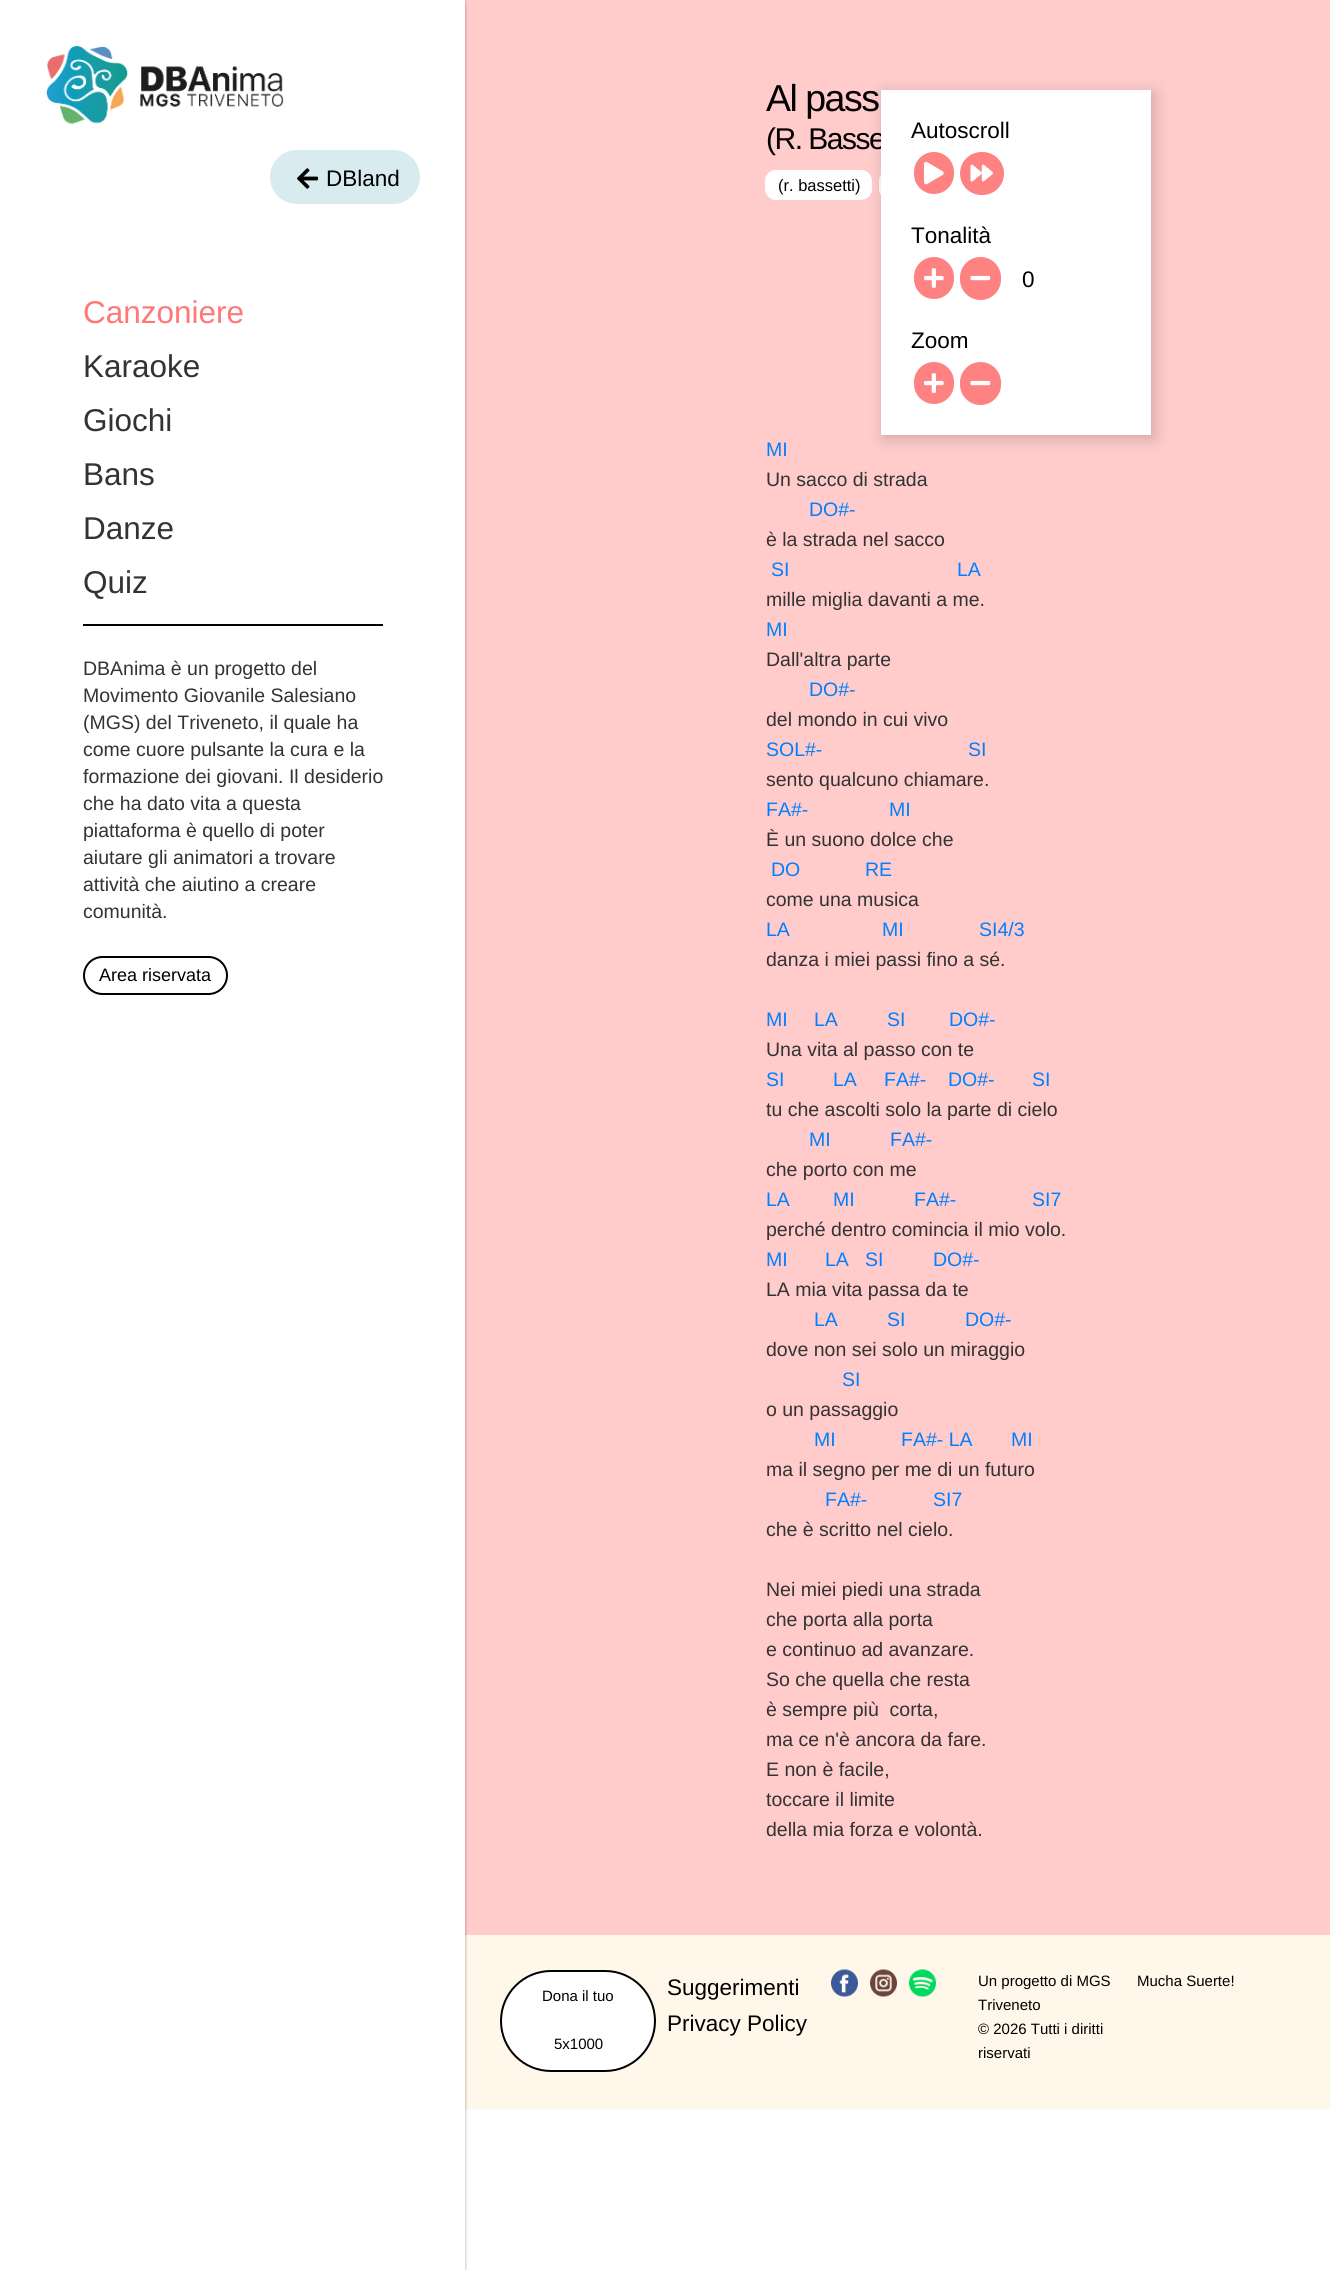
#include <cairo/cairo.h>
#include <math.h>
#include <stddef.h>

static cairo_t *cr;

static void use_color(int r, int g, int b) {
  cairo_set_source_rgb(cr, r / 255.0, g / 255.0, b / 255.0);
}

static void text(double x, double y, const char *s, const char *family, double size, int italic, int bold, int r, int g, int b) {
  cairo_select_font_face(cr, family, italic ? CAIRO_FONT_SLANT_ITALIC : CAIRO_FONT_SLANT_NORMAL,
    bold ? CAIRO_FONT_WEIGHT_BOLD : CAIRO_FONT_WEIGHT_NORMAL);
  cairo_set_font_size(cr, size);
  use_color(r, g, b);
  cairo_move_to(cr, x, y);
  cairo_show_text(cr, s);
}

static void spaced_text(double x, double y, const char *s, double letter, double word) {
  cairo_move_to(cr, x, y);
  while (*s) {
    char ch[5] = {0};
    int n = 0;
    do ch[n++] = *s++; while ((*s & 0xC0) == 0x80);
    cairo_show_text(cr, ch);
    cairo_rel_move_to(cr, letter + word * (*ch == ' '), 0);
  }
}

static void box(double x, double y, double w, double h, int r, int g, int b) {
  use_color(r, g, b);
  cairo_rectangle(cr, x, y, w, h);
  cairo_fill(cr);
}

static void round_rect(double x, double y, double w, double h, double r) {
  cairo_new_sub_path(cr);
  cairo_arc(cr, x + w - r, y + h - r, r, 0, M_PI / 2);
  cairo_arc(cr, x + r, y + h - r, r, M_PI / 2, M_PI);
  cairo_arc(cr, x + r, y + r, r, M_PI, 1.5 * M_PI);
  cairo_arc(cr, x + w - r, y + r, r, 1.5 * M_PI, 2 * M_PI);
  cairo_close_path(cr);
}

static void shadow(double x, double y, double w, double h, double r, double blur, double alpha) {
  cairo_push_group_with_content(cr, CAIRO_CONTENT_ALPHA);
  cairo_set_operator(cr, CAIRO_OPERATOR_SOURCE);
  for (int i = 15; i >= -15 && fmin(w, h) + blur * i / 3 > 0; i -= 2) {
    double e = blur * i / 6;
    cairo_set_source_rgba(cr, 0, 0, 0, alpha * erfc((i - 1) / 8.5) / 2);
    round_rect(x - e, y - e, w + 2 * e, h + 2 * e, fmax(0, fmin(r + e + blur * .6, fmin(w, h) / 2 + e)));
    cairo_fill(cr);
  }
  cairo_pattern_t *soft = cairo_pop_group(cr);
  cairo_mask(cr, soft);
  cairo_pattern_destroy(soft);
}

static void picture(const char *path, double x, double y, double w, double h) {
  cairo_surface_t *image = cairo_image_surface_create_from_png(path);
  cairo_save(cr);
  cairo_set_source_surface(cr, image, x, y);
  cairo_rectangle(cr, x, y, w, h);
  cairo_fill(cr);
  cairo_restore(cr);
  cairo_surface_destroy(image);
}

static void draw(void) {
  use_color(255, 255, 255);
  cairo_paint(cr);
  box(465, 0, 865, 1935, 255, 203, 203);
  box(465, 1935, 865, 174, 255, 248, 234);
  cairo_save(cr);
  cairo_rectangle(cr, 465, 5, 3, 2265);
  cairo_clip(cr);
  use_color(0, 0, 0);
  shadow(0, 6, 465, 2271, 0, 3, 0.12);
  cairo_restore(cr);
  cairo_save(cr);
  cairo_rectangle(cr, 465, 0, 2, 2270);
  cairo_clip(cr);
  use_color(0, 0, 0);
  shadow(0, 0, 465, 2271, 0, 1.5, 0.24);
  cairo_restore(cr);
  picture("img_01.png", 46, 46, 238, 78);
  use_color(216, 235, 239);
  round_rect(270, 150, 150, 54, 27);
  cairo_fill(cr);
  picture("img_02.png", 297, 168, 22, 21);
  box(83, 624, 300, 2, 0, 0, 0);
  round_rect(84, 957, 143, 37, 18.5);
  cairo_stroke(cr);
  use_color(255, 255, 255);
  round_rect(765, 170, 107, 30, 11);
  cairo_fill(cr);
  round_rect(879, 170, 137, 30, 11);
  cairo_fill(cr);
  use_color(0, 0, 0);
  shadow(884, 93, 270, 345, 0, 7.5, 0.19);
  use_color(255, 255, 255);
  round_rect(501, 1971, 154, 100, 50);
  cairo_fill_preserve(cr);
  use_color(0, 0, 0);
  cairo_stroke(cr);
  picture("img_07.png", 831, 1969, 27, 28);
  picture("img_08.png", 870, 1969, 27, 28);
  picture("img_09.png", 909, 1969, 27, 28);
  text(326, 186, "DBland", "Liberation Sans", 22.5, 0, 0, 0, 0, 0);
  text(83, 323, "Canzoniere", "Liberation Sans", 31.5, 0, 0, 255, 119, 119);
  text(83, 377, "Karaoke", "Liberation Sans", 31.5, 0, 0, 51, 51, 51);
  text(83, 431, "Giochi", "Liberation Sans", 31.5, 0, 0, 51, 51, 51);
  text(83, 485, "Bans", "Liberation Sans", 31.5, 0, 0, 51, 51, 51);
  text(83, 539, "Danze", "Liberation Sans", 31.5, 0, 0, 51, 51, 51);
  text(83, 593, "Quiz", "Liberation Sans", 31.5, 0, 0, 51, 51, 51);
  text(83, 675, "DBAnima è un progetto del", "Liberation Sans", 19.5, 0, 0, 51, 51, 51);
  text(83, 702, "Movimento Giovanile Salesiano", "Liberation Sans", 19.5, 0, 0, 51, 51, 51);
  text(83, 729, "(MGS) del Triveneto, il quale ha", "Liberation Sans", 19.5, 0, 0, 51, 51, 51);
  text(83, 756, "come cuore pulsante la cura e la", "Liberation Sans", 19.5, 0, 0, 51, 51, 51);
  text(83, 783, "formazione dei giovani. Il desiderio", "Liberation Sans", 19.5, 0, 0, 51, 51, 51);
  text(83, 810, "che ha dato vita a questa", "Liberation Sans", 19.5, 0, 0, 51, 51, 51);
  text(83, 837, "piattaforma è quello di poter", "Liberation Sans", 19.5, 0, 0, 51, 51, 51);
  text(83, 864, "aiutare gli animatori a trovare", "Liberation Sans", 19.5, 0, 0, 51, 51, 51);
  text(83, 891, "attività che aiutino a creare", "Liberation Sans", 19.5, 0, 0, 51, 51, 51);
  text(83, 918, "comunità.", "Liberation Sans", 19.5, 0, 0, 51, 51, 51);
  text(99, 981, "Area riservata", "Liberation Sans", 18, 0, 0, 0, 0, 0);
  cairo_set_font_size(cr, 37.5);
  spaced_text(766, 111, "Al pass", -1.5, 0);
  cairo_set_font_size(cr, 30);
  spaced_text(766, 149, "(R. Basse", -1.5, 0);
  text(778, 191, "(r. bassetti)", "Liberation Sans", 16.5, 0, 0, 0, 0, 0);
  box(881, 90, 270, 345, 255, 255, 255);
  text(911, 138, "Autoscroll", "Liberation Sans", 22.5, 0, 0, 0, 0, 0);
  use_color(255, 130, 130);
  round_rect(914, 152, 40, 42, 20);
  cairo_fill(cr);
  picture("img_03.png", 924, 161, 20, 24);
  round_rect(960, 152, 44, 43, 21.5);
  cairo_fill(cr);
  picture("img_04.png", 970, 164, 23, 18);
  text(911, 243, "Tonalità", "Liberation Sans", 22.5, 0, 0, 0, 0, 0);
  use_color(255, 130, 130);
  round_rect(914, 257, 40, 42, 20);
  cairo_fill(cr);
  picture("img_05.png", 924, 268, 20, 20);
  round_rect(960, 257, 41, 43, 20.5);
  cairo_fill(cr);
  picture("img_06.png", 970, 275, 21, 6);
  text(1022, 287, "0", "Liberation Sans", 22.5, 0, 0, 0, 0, 0);
  text(911, 348, "Zoom", "Liberation Sans", 22.5, 0, 0, 0, 0, 0);
  use_color(255, 130, 130);
  round_rect(914, 362, 40, 42, 20);
  cairo_fill(cr);
  picture("img_05.png", 924, 373, 20, 20);
  round_rect(960, 362, 41, 43, 20.5);
  cairo_fill(cr);
  picture("img_06.png", 970, 380, 21, 6);
  text(766, 456, "MI", "Liberation Sans", 19.5, 0, 0, 0, 127, 255);
  text(766, 486, "Un sacco di strada", "Liberation Sans", 19.5, 0, 0, 51, 51, 51);
  text(809, 516, "DO#-", "Liberation Sans", 19.5, 0, 0, 0, 127, 255);
  text(766, 546, "è la strada nel sacco", "Liberation Sans", 19.5, 0, 0, 51, 51, 51);
  text(771, 576, "SI", "Liberation Sans", 19.5, 0, 0, 0, 127, 255);
  text(957, 576, "LA", "Liberation Sans", 19.5, 0, 0, 0, 127, 255);
  text(766, 606, "mille miglia davanti a me.", "Liberation Sans", 19.5, 0, 0, 51, 51, 51);
  text(766, 636, "MI", "Liberation Sans", 19.5, 0, 0, 0, 127, 255);
  text(766, 666, "Dall'altra parte", "Liberation Sans", 19.5, 0, 0, 51, 51, 51);
  text(809, 696, "DO#-", "Liberation Sans", 19.5, 0, 0, 0, 127, 255);
  text(766, 726, "del mondo in cui vivo", "Liberation Sans", 19.5, 0, 0, 51, 51, 51);
  text(766, 756, "SOL#-", "Liberation Sans", 19.5, 0, 0, 0, 127, 255);
  text(968, 756, "SI", "Liberation Sans", 19.5, 0, 0, 0, 127, 255);
  text(766, 786, "sento qualcuno chiamare.", "Liberation Sans", 19.5, 0, 0, 51, 51, 51);
  text(766, 816, "FA#-", "Liberation Sans", 19.5, 0, 0, 0, 127, 255);
  text(889, 816, "MI", "Liberation Sans", 19.5, 0, 0, 0, 127, 255);
  text(766, 846, "È un suono dolce che", "Liberation Sans", 19.5, 0, 0, 51, 51, 51);
  text(771, 876, "DO", "Liberation Sans", 19.5, 0, 0, 0, 127, 255);
  text(865, 876, "RE", "Liberation Sans", 19.5, 0, 0, 0, 127, 255);
  text(766, 906, "come una musica", "Liberation Sans", 19.5, 0, 0, 51, 51, 51);
  text(766, 936, "LA", "Liberation Sans", 19.5, 0, 0, 0, 127, 255);
  text(882, 936, "MI", "Liberation Sans", 19.5, 0, 0, 0, 127, 255);
  text(979, 936, "SI4/3", "Liberation Sans", 19.5, 0, 0, 0, 127, 255);
  text(766, 966, "danza i miei passi fino a sé.", "Liberation Sans", 19.5, 0, 0, 51, 51, 51);
  text(766, 1026, "MI", "Liberation Sans", 19.5, 0, 0, 0, 127, 255);
  text(814, 1026, "LA", "Liberation Sans", 19.5, 0, 0, 0, 127, 255);
  text(887, 1026, "SI", "Liberation Sans", 19.5, 0, 0, 0, 127, 255);
  text(949, 1026, "DO#-", "Liberation Sans", 19.5, 0, 0, 0, 127, 255);
  text(766, 1056, "Una vita al passo con te", "Liberation Sans", 19.5, 0, 0, 51, 51, 51);
  text(766, 1086, "SI", "Liberation Sans", 19.5, 0, 0, 0, 127, 255);
  text(833, 1086, "LA", "Liberation Sans", 19.5, 0, 0, 0, 127, 255);
  text(884, 1086, "FA#-", "Liberation Sans", 19.5, 0, 0, 0, 127, 255);
  text(948, 1086, "DO#-", "Liberation Sans", 19.5, 0, 0, 0, 127, 255);
  text(1032, 1086, "SI", "Liberation Sans", 19.5, 0, 0, 0, 127, 255);
  text(766, 1116, "tu che ascolti solo la parte di cielo", "Liberation Sans", 19.5, 0, 0, 51, 51, 51);
  text(809, 1146, "MI", "Liberation Sans", 19.5, 0, 0, 0, 127, 255);
  text(890, 1146, "FA#-", "Liberation Sans", 19.5, 0, 0, 0, 127, 255);
  text(766, 1176, "che porto con me", "Liberation Sans", 19.5, 0, 0, 51, 51, 51);
  text(766, 1206, "LA", "Liberation Sans", 19.5, 0, 0, 0, 127, 255);
  text(833, 1206, "MI", "Liberation Sans", 19.5, 0, 0, 0, 127, 255);
  text(914, 1206, "FA#-", "Liberation Sans", 19.5, 0, 0, 0, 127, 255);
  text(1032, 1206, "SI7", "Liberation Sans", 19.5, 0, 0, 0, 127, 255);
  text(766, 1236, "perché dentro comincia il mio volo.", "Liberation Sans", 19.5, 0, 0, 51, 51, 51);
  text(766, 1266, "MI", "Liberation Sans", 19.5, 0, 0, 0, 127, 255);
  text(825, 1266, "LA", "Liberation Sans", 19.5, 0, 0, 0, 127, 255);
  text(865, 1266, "SI", "Liberation Sans", 19.5, 0, 0, 0, 127, 255);
  text(933, 1266, "DO#-", "Liberation Sans", 19.5, 0, 0, 0, 127, 255);
  text(766, 1296, "LA mia vita passa da te", "Liberation Sans", 19.5, 0, 0, 51, 51, 51);
  text(814, 1326, "LA", "Liberation Sans", 19.5, 0, 0, 0, 127, 255);
  text(887, 1326, "SI", "Liberation Sans", 19.5, 0, 0, 0, 127, 255);
  text(965, 1326, "DO#-", "Liberation Sans", 19.5, 0, 0, 0, 127, 255);
  text(766, 1356, "dove non sei solo un miraggio", "Liberation Sans", 19.5, 0, 0, 51, 51, 51);
  text(842, 1386, "SI", "Liberation Sans", 19.5, 0, 0, 0, 127, 255);
  text(766, 1416, "o un passaggio", "Liberation Sans", 19.5, 0, 0, 51, 51, 51);
  text(814, 1446, "MI", "Liberation Sans", 19.5, 0, 0, 0, 127, 255);
  text(901, 1446, "FA#- LA", "Liberation Sans", 19.5, 0, 0, 0, 127, 255);
  text(1011, 1446, "MI", "Liberation Sans", 19.5, 0, 0, 0, 127, 255);
  text(766, 1476, "ma il segno per me di un futuro", "Liberation Sans", 19.5, 0, 0, 51, 51, 51);
  text(825, 1506, "FA#-", "Liberation Sans", 19.5, 0, 0, 0, 127, 255);
  text(933, 1506, "SI7", "Liberation Sans", 19.5, 0, 0, 0, 127, 255);
  text(766, 1536, "che è scritto nel cielo.", "Liberation Sans", 19.5, 0, 0, 51, 51, 51);
  text(766, 1596, "Nei miei piedi una strada", "Liberation Sans", 19.5, 0, 0, 51, 51, 51);
  text(766, 1626, "che porta alla porta", "Liberation Sans", 19.5, 0, 0, 51, 51, 51);
  text(766, 1656, "e continuo ad avanzare.", "Liberation Sans", 19.5, 0, 0, 51, 51, 51);
  text(766, 1686, "So che quella che resta", "Liberation Sans", 19.5, 0, 0, 51, 51, 51);
  text(766, 1716, "è sempre più  corta,", "Liberation Sans", 19.5, 0, 0, 51, 51, 51);
  text(766, 1746, "ma ce n'è ancora da fare.", "Liberation Sans", 19.5, 0, 0, 51, 51, 51);
  text(766, 1776, "E non è facile,", "Liberation Sans", 19.5, 0, 0, 51, 51, 51);
  text(766, 1806, "toccare il limite", "Liberation Sans", 19.5, 0, 0, 51, 51, 51);
  text(766, 1836, "della mia forza e volontà.", "Liberation Sans", 19.5, 0, 0, 51, 51, 51);
  text(542, 2001, "Dona il tuo", "Liberation Sans", 15, 0, 0, 0, 0, 0);
  text(554, 2049, "5x1000", "Liberation Sans", 15, 0, 0, 0, 0, 0);
  text(667, 1995, "Suggerimenti", "Liberation Sans", 22.5, 0, 0, 0, 0, 0);
  text(667, 2031, "Privacy Policy", "Liberation Sans", 22.5, 0, 0, 0, 0, 0);
  text(978, 1986, "Un progetto di MGS", "Liberation Sans", 15, 0, 0, 0, 0, 0);
  text(978, 2010, "Triveneto", "Liberation Sans", 15, 0, 0, 0, 0, 0);
  text(978, 2034, "© 2026 Tutti i diritti", "Liberation Sans", 15, 0, 0, 0, 0, 0);
  text(978, 2058, "riservati", "Liberation Sans", 15, 0, 0, 0, 0, 0);
  text(1137, 1986, "Mucha Suerte!", "Liberation Sans", 15, 0, 0, 0, 0, 0);
}

int main(void) {
  cairo_surface_t *surface = cairo_image_surface_create(CAIRO_FORMAT_RGB24, 1330, 2270);
  cr = cairo_create(surface);
  cairo_font_options_t *options = cairo_font_options_create();
  cairo_font_options_set_hint_metrics(options, CAIRO_HINT_METRICS_OFF);
  cairo_font_options_set_hint_style(options, CAIRO_HINT_STYLE_NONE);
  cairo_set_font_options(cr, options);
  cairo_set_miter_limit(cr, 4);
  draw();
  cairo_surface_write_to_png(surface, "out.png");
  cairo_font_options_destroy(options);
  cairo_destroy(cr);
  cairo_surface_destroy(surface);
  return 0;
}
